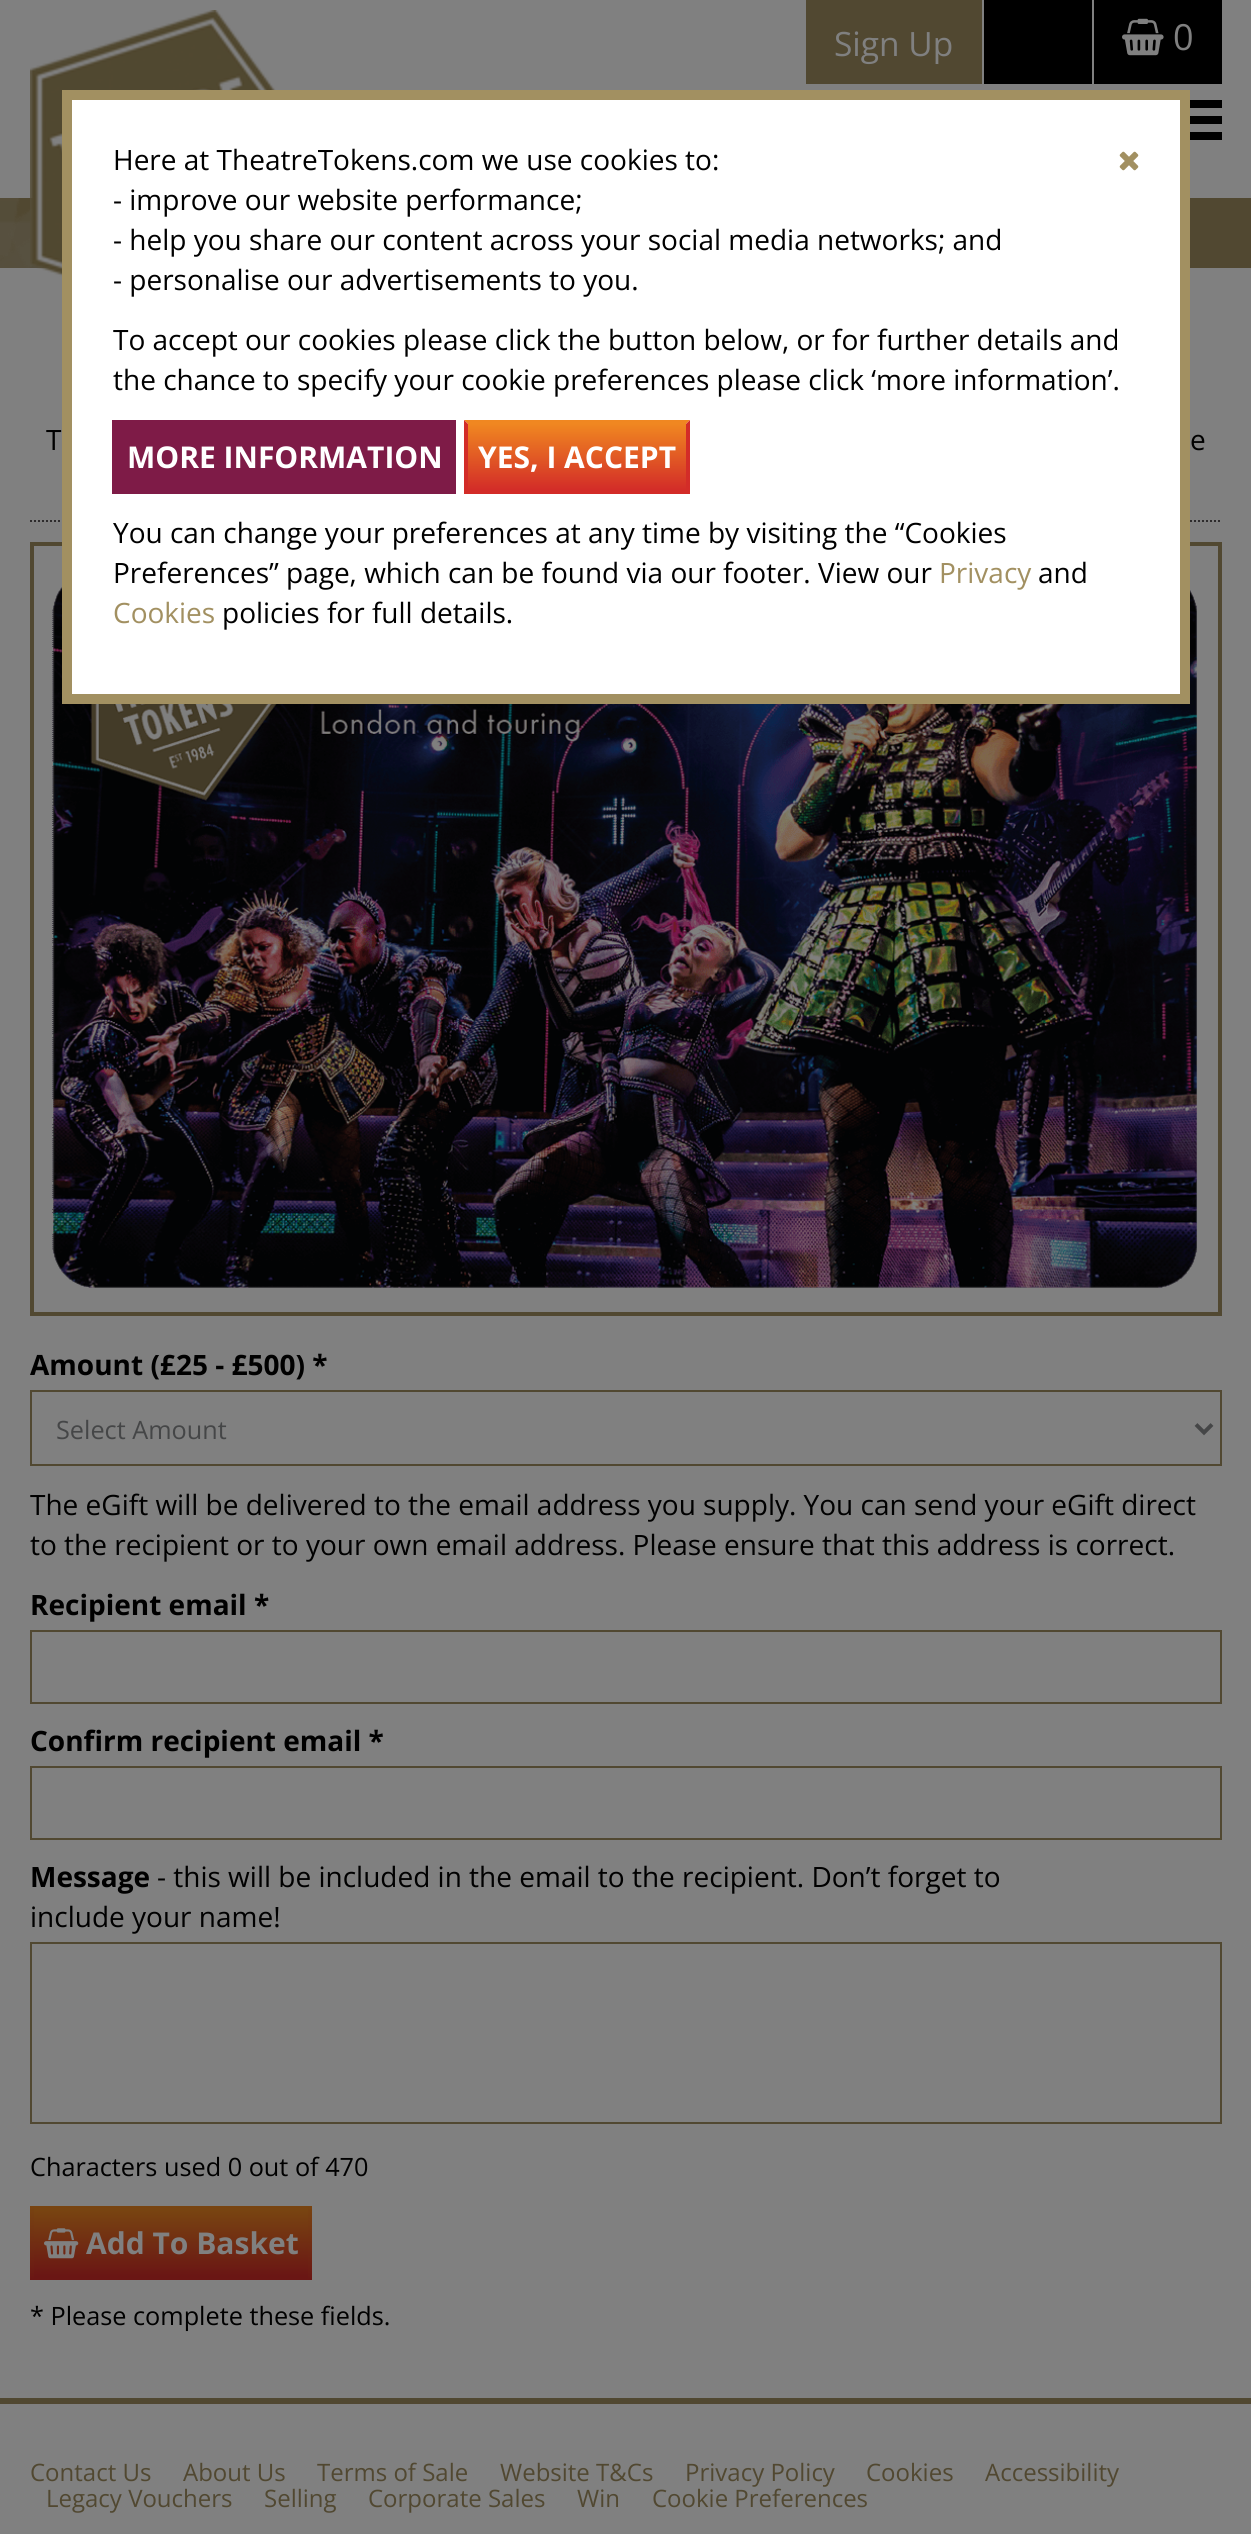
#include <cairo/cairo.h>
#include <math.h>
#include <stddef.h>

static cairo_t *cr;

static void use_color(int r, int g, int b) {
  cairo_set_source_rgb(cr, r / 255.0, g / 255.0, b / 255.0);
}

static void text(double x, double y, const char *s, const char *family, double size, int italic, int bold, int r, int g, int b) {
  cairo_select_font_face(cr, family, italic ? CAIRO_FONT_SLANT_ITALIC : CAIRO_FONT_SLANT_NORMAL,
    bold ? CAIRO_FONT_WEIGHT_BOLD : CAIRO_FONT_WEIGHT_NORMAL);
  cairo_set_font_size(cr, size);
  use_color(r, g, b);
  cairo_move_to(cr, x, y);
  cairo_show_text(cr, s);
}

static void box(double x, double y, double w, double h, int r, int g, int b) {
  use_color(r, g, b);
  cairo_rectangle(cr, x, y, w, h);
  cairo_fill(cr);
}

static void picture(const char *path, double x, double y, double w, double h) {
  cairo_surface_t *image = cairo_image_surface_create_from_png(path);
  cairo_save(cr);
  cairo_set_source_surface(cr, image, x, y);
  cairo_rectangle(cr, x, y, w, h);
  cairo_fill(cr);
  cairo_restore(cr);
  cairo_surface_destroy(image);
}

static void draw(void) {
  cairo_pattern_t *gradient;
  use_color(128, 128, 128);
  cairo_paint(cr);
  box(0, 198, 1251, 70, 81, 72, 49);
  picture("img_04.png", 0, 198, 51, 70);
  picture("img_01.png", 30, 10, 246, 267);
  box(806, 0, 176, 84, 81, 72, 49);
  box(984, 0, 238, 84, 0, 0, 0);
  box(1092, 0, 2, 84, 128, 128, 128);
  picture("img_02.png", 1122, 18, 42, 38);
  box(1190, 100, 32, 8, 0, 0, 0);
  box(1190, 116, 32, 8, 0, 0, 0);
  box(1190, 132, 32, 8, 0, 0, 0);
  cairo_new_path(cr);
  cairo_move_to(cr, 30, 521);
  cairo_line_to(cr, 1222, 521);
  use_color(45, 43, 44);
  cairo_set_dash(cr, (double[]){2, 2}, 2, 0);
  cairo_stroke(cr);
  cairo_rectangle(cr, 32, 544, 1188, 770);
  use_color(81, 72, 49);
  cairo_set_line_width(cr, 4);
  cairo_set_dash(cr, NULL, 0, 0);
  cairo_stroke(cr);
  picture("img_05.png", 52, 587, 1145, 701);
  use_color(255, 255, 255);
  cairo_rectangle(cr, 67, 95, 1118, 604);
  cairo_fill_preserve(cr);
  use_color(162, 144, 97);
  cairo_set_line_width(cr, 10);
  cairo_stroke(cr);
  picture("img_03.png", 1119, 151, 20, 20);
  box(112, 420, 344, 74, 126, 27, 71);
  gradient = cairo_pattern_create_linear(577, 424, 577, 490);
  cairo_pattern_add_color_stop_rgba(gradient, 0, 0.941, 0.529, 0.129, 1);
  cairo_pattern_add_color_stop_rgba(gradient, 1, 0.827, 0.173, 0.157, 1);
  cairo_set_source(cr, gradient);
  cairo_pattern_destroy(gradient);
  cairo_rectangle(cr, 468, 424, 218, 66);
  cairo_fill(cr);
  use_color(240, 135, 33);
  cairo_new_path(cr);
  cairo_move_to(cr, 464, 420);
  cairo_line_to(cr, 690, 420);
  cairo_line_to(cr, 686, 424);
  cairo_line_to(cr, 468, 424);
  cairo_close_path(cr);
  cairo_fill(cr);
  use_color(211, 44, 40);
  cairo_new_path(cr);
  cairo_move_to(cr, 690, 420);
  cairo_line_to(cr, 690, 494);
  cairo_line_to(cr, 686, 490);
  cairo_line_to(cr, 686, 424);
  cairo_close_path(cr);
  cairo_fill(cr);
  box(464, 490, 226, 4, 211, 44, 40);
  cairo_new_path(cr);
  cairo_move_to(cr, 464, 494);
  cairo_line_to(cr, 464, 420);
  cairo_line_to(cr, 468, 424);
  cairo_line_to(cr, 468, 490);
  cairo_close_path(cr);
  cairo_fill(cr);
  cairo_rectangle(cr, 31, 1391, 1190, 74);
  use_color(81, 72, 49);
  cairo_set_line_width(cr, 2);
  cairo_stroke(cr);
  cairo_new_path(cr);
  cairo_move_to(cr, 1196, 1424.5);
  cairo_line_to(cr, 1204, 1432.5);
  cairo_line_to(cr, 1212, 1424.5);
  use_color(69, 70, 71);
  cairo_set_line_width(cr, 4);
  cairo_stroke(cr);
  cairo_rectangle(cr, 31, 1631, 1190, 72);
  use_color(81, 72, 49);
  cairo_set_line_width(cr, 2);
  cairo_stroke(cr);
  cairo_rectangle(cr, 31, 1767, 1190, 72);
  cairo_stroke(cr);
  cairo_rectangle(cr, 31, 1943, 1190, 180);
  cairo_stroke(cr);
  gradient = cairo_pattern_create_linear(171, 2210, 171, 2276);
  cairo_pattern_add_color_stop_rgba(gradient, 0, 0.471, 0.267, 0.067, 1);
  cairo_pattern_add_color_stop_rgba(gradient, 1, 0.416, 0.086, 0.078, 1);
  cairo_set_source(cr, gradient);
  cairo_pattern_destroy(gradient);
  cairo_rectangle(cr, 34, 2210, 274, 66);
  cairo_fill(cr);
  use_color(120, 68, 17);
  cairo_new_path(cr);
  cairo_move_to(cr, 30, 2206);
  cairo_line_to(cr, 312, 2206);
  cairo_line_to(cr, 308, 2210);
  cairo_line_to(cr, 34, 2210);
  cairo_close_path(cr);
  cairo_fill(cr);
  box(30, 2276, 282, 4, 106, 22, 20);
  gradient = cairo_pattern_create_linear(32, 2206, 32, 2280);
  cairo_pattern_add_color_stop_rgba(gradient, 0, 0.471, 0.267, 0.067, 1);
  cairo_pattern_add_color_stop_rgba(gradient, 1, 0.416, 0.086, 0.078, 1);
  cairo_set_source(cr, gradient);
  cairo_pattern_destroy(gradient);
  cairo_rectangle(cr, 30, 2206, 4, 74);
  cairo_fill(cr);
  picture("img_06.png", 44, 2228, 35, 31);
  gradient = cairo_pattern_create_linear(310, 2206, 310, 2280);
  cairo_pattern_add_color_stop_rgba(gradient, 0, 0.471, 0.267, 0.067, 1);
  cairo_pattern_add_color_stop_rgba(gradient, 1, 0.416, 0.086, 0.078, 1);
  cairo_set_source(cr, gradient);
  cairo_pattern_destroy(gradient);
  cairo_rectangle(cr, 308, 2206, 4, 74);
  cairo_fill(cr);
  box(0, 2398, 1251, 6, 81, 72, 49);
  text(834, 56, "Sign Up", "Open Sans", 33.5, 0, 0, 128, 128, 128);
  text(1173, 50, "0", "Open Sans", 36, 0, 0, 128, 128, 128);
  text(113, 170, "Here at TheatreTokens.com we use cookies to:", "Open Sans", 28, 0, 0, 0, 0, 0);
  text(113, 210, "- improve our website performance;", "Open Sans", 28, 0, 0, 0, 0, 0);
  text(113, 250, "- help you share our content across your social media networks; and", "Open Sans", 28, 0, 0, 0, 0, 0);
  text(113, 290, "- personalise our advertisements to you.", "Open Sans", 28, 0, 0, 0, 0, 0);
  text(113, 350, "To accept our cookies please click the button below, or for further details and", "Open Sans", 28, 0, 0, 0, 0, 0);
  text(113, 390, "the chance to specify your cookie preferences please click ‘more information’.", "Open Sans", 28, 0, 0, 0, 0, 0);
  text(127, 468, "MORE INFORMATION", "Open Sans", 30, 0, 1, 255, 255, 255);
  text(478, 468, "YES, I ACCEPT", "Open Sans", 30, 0, 1, 255, 255, 255);
  text(113, 543, "You can change your preferences at any time by visiting the “Cookies", "Open Sans", 28, 0, 0, 0, 0, 0);
  text(113, 583, "Preferences” page, which can be found via our footer. View our", "Open Sans", 28, 0, 0, 0, 0, 0);
  text(939, 583, "Privacy", "Open Sans", 28, 0, 0, 162, 144, 97);
  text(1038, 583, "and", "Open Sans", 28, 0, 0, 0, 0, 0);
  text(113, 623, "Cookies", "Open Sans", 28, 0, 0, 162, 144, 97);
  text(222, 623, "policies for full details.", "Open Sans", 28, 0, 0, 0, 0, 0);
  text(46, 450, "T", "Open Sans", 28, 0, 0, 0, 0, 0);
  text(1190, 450, "e", "Open Sans", 28, 0, 0, 0, 0, 0);
  text(30, 1375, "Amount (£25 - £500) *", "Open Sans", 28, 0, 1, 0, 0, 0);
  text(56, 1439, "Select Amount", "Open Sans", 25.25, 0, 0, 69, 70, 71);
  text(30, 1515, "The eGift will be delivered to the email address you supply. You can send your eGift direct", "Open Sans", 28, 0, 0, 0, 0, 0);
  text(30, 1555, "to the recipient or to your own email address. Please ensure that this address is correct.", "Open Sans", 28, 0, 0, 0, 0, 0);
  text(30, 1615, "Recipient email *", "Open Sans", 28, 0, 1, 0, 0, 0);
  text(30, 1751, "Confirm recipient email *", "Open Sans", 28, 0, 1, 0, 0, 0);
  text(30, 1887, "Message", "Open Sans", 28, 0, 1, 0, 0, 0);
  text(157, 1887, "- this will be included in the email to the recipient. Don’t forget to", "Open Sans", 28, 0, 0, 0, 0, 0);
  text(30, 1927, "include your name!", "Open Sans", 28, 0, 0, 0, 0, 0);
  text(30, 2176, "Characters used 0 out of 470", "Open Sans", 25.25, 0, 0, 0, 0, 0);
  text(86, 2254, "Add To Basket", "Open Sans", 30, 0, 1, 128, 128, 128);
  text(30, 2325, "* Please complete these fields.", "Open Sans", 25.25, 0, 0, 0, 0, 0);
  text(30, 2481, "Contact Us", "Open Sans", 24, 0, 0, 81, 72, 49);
  text(183, 2481, "About Us", "Open Sans", 24, 0, 0, 81, 72, 49);
  text(317, 2481, "Terms of Sale", "Open Sans", 24, 0, 0, 81, 72, 49);
  text(500, 2481, "Website T&Cs", "Open Sans", 24, 0, 0, 81, 72, 49);
  text(685, 2481, "Privacy Policy", "Open Sans", 24, 0, 0, 81, 72, 49);
  text(866, 2481, "Cookies", "Open Sans", 24, 0, 0, 81, 72, 49);
  text(985, 2481, "Accessibility", "Open Sans", 24, 0, 0, 81, 72, 49);
  text(46, 2507, "Legacy Vouchers", "Open Sans", 24, 0, 0, 81, 72, 49);
  text(264, 2507, "Selling", "Open Sans", 24, 0, 0, 81, 72, 49);
  text(368, 2507, "Corporate Sales", "Open Sans", 24, 0, 0, 81, 72, 49);
  text(577, 2507, "Win", "Open Sans", 24, 0, 0, 81, 72, 49);
  text(652, 2507, "Cookie Preferences", "Open Sans", 24, 0, 0, 81, 72, 49);
}

int main(void) {
  cairo_surface_t *surface = cairo_image_surface_create(CAIRO_FORMAT_RGB24, 1251, 2534);
  cr = cairo_create(surface);
  cairo_font_options_t *options = cairo_font_options_create();
  cairo_font_options_set_hint_metrics(options, CAIRO_HINT_METRICS_OFF);
  cairo_font_options_set_hint_style(options, CAIRO_HINT_STYLE_NONE);
  cairo_set_font_options(cr, options);
  cairo_set_miter_limit(cr, 4);
  draw();
  cairo_surface_write_to_png(surface, "out.png");
  cairo_font_options_destroy(options);
  cairo_destroy(cr);
  cairo_surface_destroy(surface);
  return 0;
}
